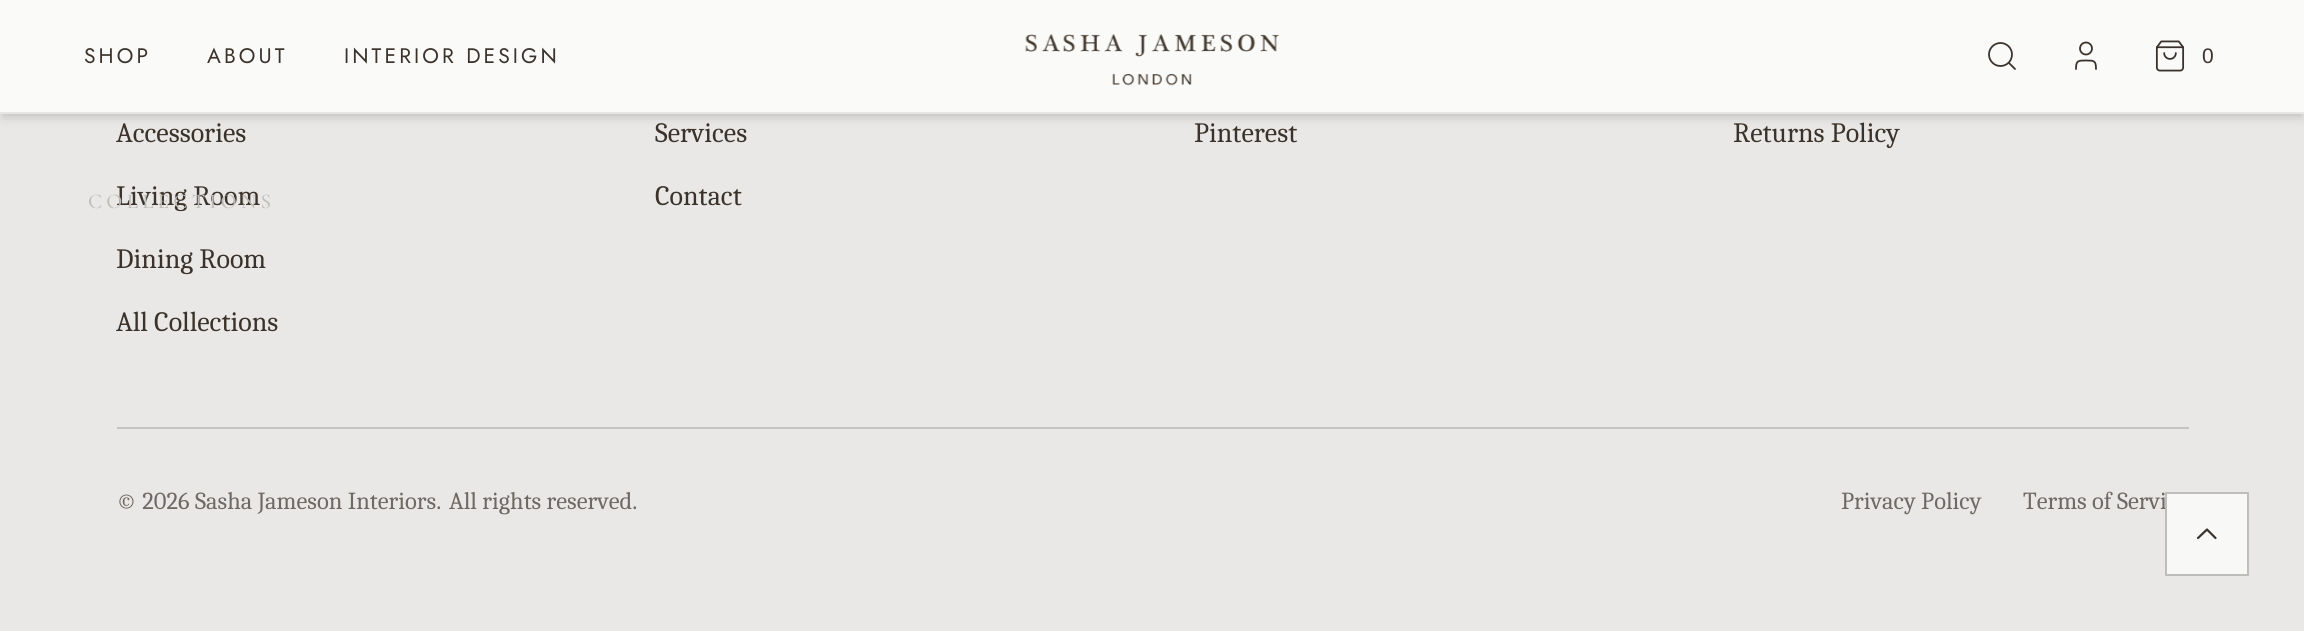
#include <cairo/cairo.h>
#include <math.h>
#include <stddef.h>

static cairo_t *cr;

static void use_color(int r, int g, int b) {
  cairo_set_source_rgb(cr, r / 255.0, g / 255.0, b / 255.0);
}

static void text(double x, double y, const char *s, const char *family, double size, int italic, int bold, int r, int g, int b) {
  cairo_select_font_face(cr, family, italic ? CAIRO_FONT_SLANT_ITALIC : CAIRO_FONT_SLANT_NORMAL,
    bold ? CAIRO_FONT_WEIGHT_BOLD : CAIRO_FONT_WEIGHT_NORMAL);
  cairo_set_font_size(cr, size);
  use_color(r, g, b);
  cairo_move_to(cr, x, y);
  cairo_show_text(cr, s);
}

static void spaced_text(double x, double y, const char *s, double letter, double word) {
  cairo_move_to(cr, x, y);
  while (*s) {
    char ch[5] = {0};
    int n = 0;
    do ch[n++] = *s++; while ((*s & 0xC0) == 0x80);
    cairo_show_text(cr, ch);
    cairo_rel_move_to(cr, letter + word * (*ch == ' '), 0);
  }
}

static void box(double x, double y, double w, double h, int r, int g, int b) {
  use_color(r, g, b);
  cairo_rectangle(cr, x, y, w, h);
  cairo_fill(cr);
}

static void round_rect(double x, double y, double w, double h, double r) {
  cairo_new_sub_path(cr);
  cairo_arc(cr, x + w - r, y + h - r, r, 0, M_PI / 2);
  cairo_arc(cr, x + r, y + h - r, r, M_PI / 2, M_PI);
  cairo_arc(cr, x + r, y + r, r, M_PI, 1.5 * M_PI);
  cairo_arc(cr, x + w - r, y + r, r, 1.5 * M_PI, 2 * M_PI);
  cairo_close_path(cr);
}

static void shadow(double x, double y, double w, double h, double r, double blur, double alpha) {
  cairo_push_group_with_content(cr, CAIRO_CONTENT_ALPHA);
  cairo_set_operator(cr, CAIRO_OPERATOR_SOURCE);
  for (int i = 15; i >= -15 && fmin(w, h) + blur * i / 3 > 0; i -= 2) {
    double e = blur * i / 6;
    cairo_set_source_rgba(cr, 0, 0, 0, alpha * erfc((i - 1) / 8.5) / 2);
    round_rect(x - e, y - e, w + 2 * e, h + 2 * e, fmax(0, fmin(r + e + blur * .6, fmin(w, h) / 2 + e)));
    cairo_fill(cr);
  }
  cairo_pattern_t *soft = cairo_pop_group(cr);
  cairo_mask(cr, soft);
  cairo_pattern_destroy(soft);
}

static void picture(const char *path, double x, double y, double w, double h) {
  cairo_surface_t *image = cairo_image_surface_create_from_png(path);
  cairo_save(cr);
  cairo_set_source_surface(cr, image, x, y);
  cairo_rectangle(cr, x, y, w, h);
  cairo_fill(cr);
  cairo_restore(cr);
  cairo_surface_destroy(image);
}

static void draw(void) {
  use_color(233, 232, 230);
  cairo_paint(cr);
  use_color(0, 0, 0);
  shadow(4, 7, 2297, 107, 0, 3.5, 0.1);
  shadow(2, 9, 2301, 110, 0, 5, 0.1);
  box(0, 0, 2304, 112, 250, 250, 249);
  box(0, 112, 2304, 2, 231, 230, 228);
  picture("img_01.png", 1024, 34, 255, 52);
  cairo_arc(cr, 2000.5, 54.5, 11.5, 0, 2 * M_PI);
  use_color(59, 51, 43);
  cairo_set_line_width(cr, 1.8);
  cairo_stroke(cr);
  cairo_new_path(cr);
  cairo_move_to(cr, 2015, 69);
  cairo_line_to(cr, 2009, 63);
  cairo_set_line_cap(cr, CAIRO_LINE_CAP_ROUND);
  cairo_set_line_join(cr, CAIRO_LINE_JOIN_ROUND);
  cairo_stroke(cr);
  cairo_new_path(cr);
  cairo_move_to(cr, 2096, 69);
  cairo_curve_to(cr, 2096, 60.5, 2094, 60.5, 2086, 60.5);
  cairo_curve_to(cr, 2078, 60.5, 2076, 60.5, 2076, 69);
  cairo_stroke(cr);
  cairo_arc(cr, 2086, 48.5, 6, 0, 2 * M_PI);
  cairo_set_line_cap(cr, CAIRO_LINE_CAP_BUTT);
  cairo_set_line_join(cr, CAIRO_LINE_JOIN_MITER);
  cairo_stroke(cr);
  picture("img_02.png", 2155, 40, 30, 32);
  box(117, 427, 2072, 2, 198, 196, 193);
  cairo_select_font_face(cr, "Jost", CAIRO_FONT_SLANT_NORMAL, CAIRO_FONT_WEIGHT_NORMAL);
  cairo_set_font_size(cr, 21);
  use_color(59, 51, 43);
  spaced_text(84, 63, "SHOP", 3.1, 0);
  spaced_text(207, 63, "ABOUT", 3.1, 0);
  spaced_text(344, 63, "INTERIOR DESIGN", 3.1, 0);
  text(2202, 63, "0", "Liberation Sans", 21, 0, 0, 59, 51, 43);
  text(116, 142, "Accessories", "Caladea", 28, 0, 0, 59, 51, 43);
  text(116, 205, "Living Room", "Caladea", 28, 0, 0, 59, 51, 43);
  text(116, 268, "Dining Room", "Caladea", 28, 0, 0, 59, 51, 43);
  text(116, 331, "All Collections", "Caladea", 28, 0, 0, 59, 51, 43);
  text(655, 142, "Services", "Caladea", 28, 0, 0, 59, 51, 43);
  text(655, 205, "Contact", "Caladea", 28, 0, 0, 59, 51, 43);
  text(1194, 142, "Pinterest", "Caladea", 28, 0, 0, 59, 51, 43);
  text(1733, 142, "Returns Policy", "Caladea", 28, 0, 0, 59, 51, 43);
  text(116, 509, "© 2026 Sasha Jameson Interiors.", "Caladea", 24.5, 0, 0, 111, 105, 99);
  text(449, 509, "All rights reserved.", "Caladea", 24.5, 0, 0, 111, 105, 99);
  text(1841, 509, "Privacy Policy", "Caladea", 24.5, 0, 0, 111, 105, 99);
  text(2023, 509, "Terms of Servi", "Caladea", 24.5, 0, 0, 111, 105, 99);
  cairo_select_font_face(cr, "Cormorant Medium", CAIRO_FONT_SLANT_NORMAL, CAIRO_FONT_WEIGHT_NORMAL);
  cairo_set_font_size(cr, 21);
  use_color(191, 189, 185);
  spaced_text(88, 208, "COLLECTIONS", 4.25, 0);
  cairo_set_source_rgba(cr, 0.98, 0.98, 0.976, 0.9);
  cairo_rectangle(cr, 2165, 492, 84, 84);
  cairo_fill(cr);
  cairo_rectangle(cr, 2166, 493, 82, 82);
  cairo_set_source_rgba(cr, 0.231, 0.2, 0.169, 0.3);
  cairo_set_line_width(cr, 2);
  cairo_stroke(cr);
  cairo_new_path(cr);
  cairo_move_to(cr, 2215.5, 538);
  cairo_line_to(cr, 2207, 529.5);
  cairo_line_to(cr, 2198, 538);
  use_color(59, 51, 43);
  cairo_set_line_width(cr, 2.2);
  cairo_set_line_cap(cr, CAIRO_LINE_CAP_ROUND);
  cairo_set_line_join(cr, CAIRO_LINE_JOIN_ROUND);
  cairo_stroke(cr);
}

int main(void) {
  cairo_surface_t *surface = cairo_image_surface_create(CAIRO_FORMAT_RGB24, 2304, 631);
  cr = cairo_create(surface);
  cairo_font_options_t *options = cairo_font_options_create();
  cairo_font_options_set_hint_metrics(options, CAIRO_HINT_METRICS_OFF);
  cairo_font_options_set_hint_style(options, CAIRO_HINT_STYLE_NONE);
  cairo_set_font_options(cr, options);
  cairo_set_miter_limit(cr, 4);
  draw();
  cairo_surface_write_to_png(surface, "out.png");
  cairo_font_options_destroy(options);
  cairo_destroy(cr);
  cairo_surface_destroy(surface);
  return 0;
}
